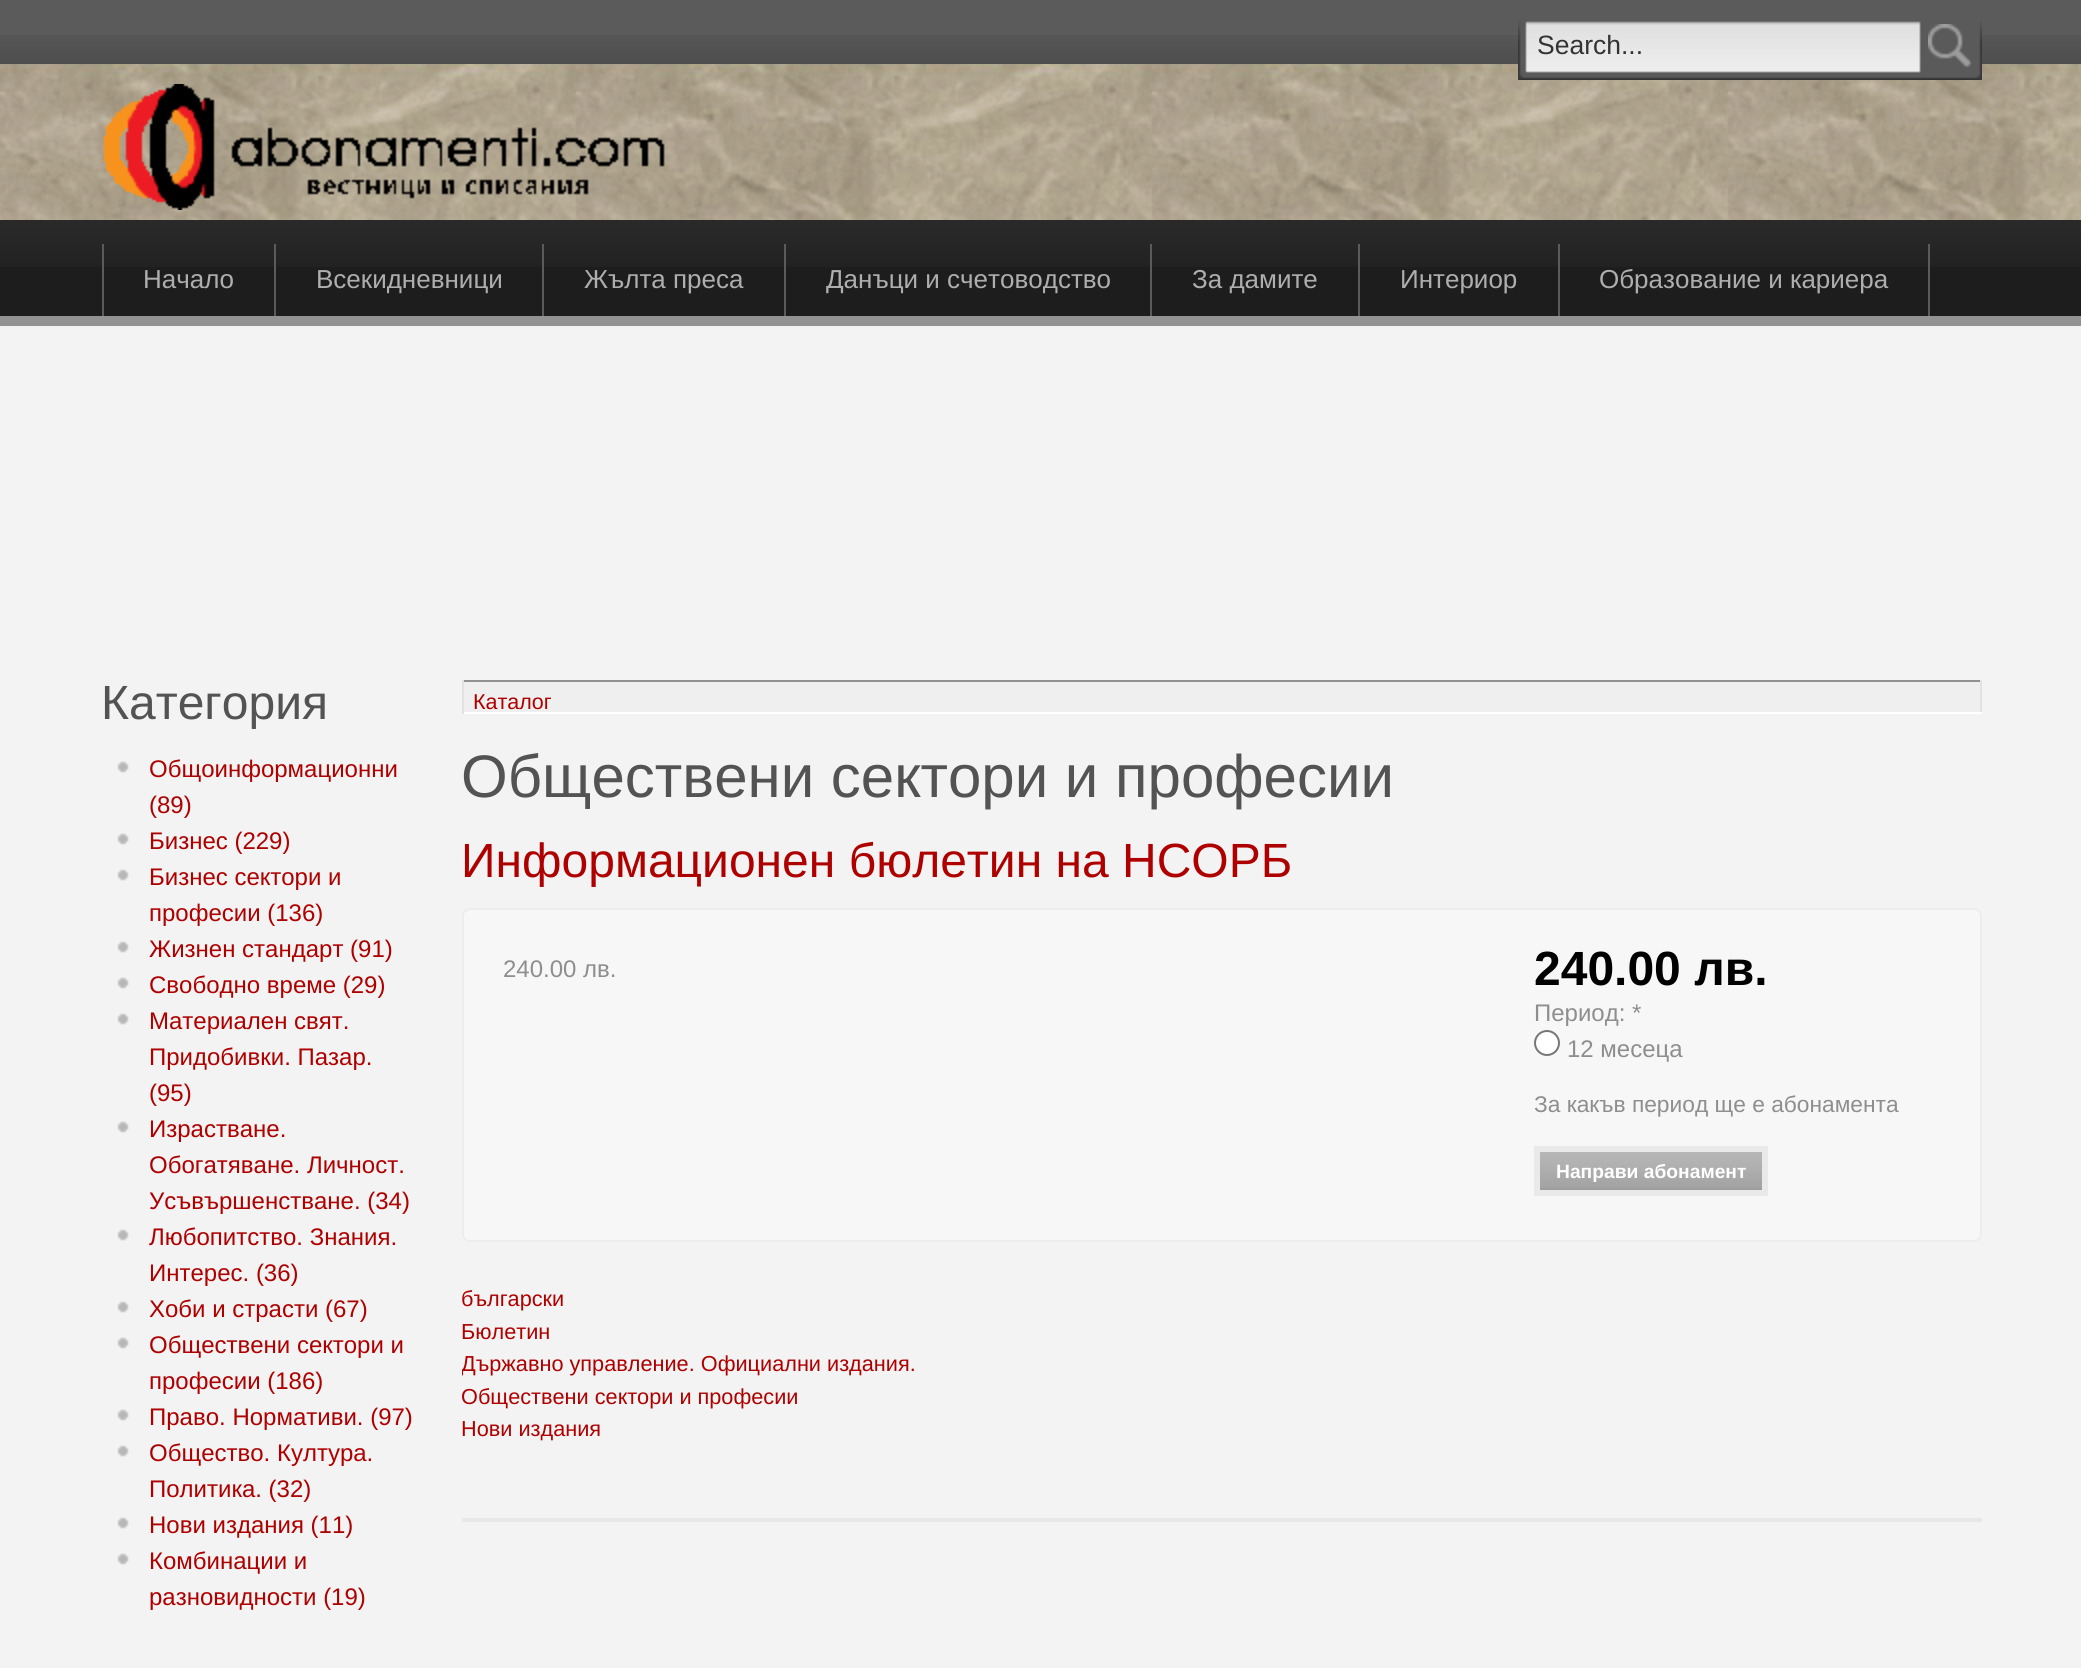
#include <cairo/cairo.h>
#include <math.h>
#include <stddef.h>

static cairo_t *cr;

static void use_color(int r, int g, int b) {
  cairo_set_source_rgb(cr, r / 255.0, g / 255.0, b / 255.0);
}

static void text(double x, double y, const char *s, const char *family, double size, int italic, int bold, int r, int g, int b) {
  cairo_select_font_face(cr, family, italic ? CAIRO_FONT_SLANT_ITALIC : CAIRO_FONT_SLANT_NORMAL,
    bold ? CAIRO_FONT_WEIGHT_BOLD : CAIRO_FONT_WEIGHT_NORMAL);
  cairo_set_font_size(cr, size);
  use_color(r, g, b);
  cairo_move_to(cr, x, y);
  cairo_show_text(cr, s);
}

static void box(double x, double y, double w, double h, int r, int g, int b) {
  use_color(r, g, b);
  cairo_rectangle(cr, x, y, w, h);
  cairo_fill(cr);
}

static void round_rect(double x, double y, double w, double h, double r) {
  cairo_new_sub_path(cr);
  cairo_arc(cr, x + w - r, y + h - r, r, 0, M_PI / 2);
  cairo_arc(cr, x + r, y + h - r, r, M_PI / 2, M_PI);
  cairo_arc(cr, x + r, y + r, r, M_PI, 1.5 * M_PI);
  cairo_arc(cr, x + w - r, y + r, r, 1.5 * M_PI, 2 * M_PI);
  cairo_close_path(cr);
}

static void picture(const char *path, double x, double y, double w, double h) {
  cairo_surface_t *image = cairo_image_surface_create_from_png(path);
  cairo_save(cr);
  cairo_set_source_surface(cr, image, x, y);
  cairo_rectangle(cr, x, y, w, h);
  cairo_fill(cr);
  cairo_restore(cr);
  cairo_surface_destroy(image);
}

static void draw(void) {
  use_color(243, 243, 243);
  cairo_paint(cr);
  box(0, 0, 2081, 35, 91, 91, 91);
  picture("img_01.png", 0, 35, 2081, 29);
  picture("img_04.png", 0, 64, 2081, 156);
  picture("img_02.png", 1518, 21, 464, 59);
  picture("img_03.png", 1928, 24, 44, 44);
  picture("img_05.png", 103, 84, 562, 126);
  box(0, 267, 2081, 49, 29, 29, 29);
  picture("img_06.png", 0, 220, 2081, 47);
  box(0, 316, 2081, 10, 146, 146, 146);
  box(102, 244, 2, 72, 91, 91, 91);
  box(274, 244, 2, 72, 91, 91, 91);
  box(542, 244, 2, 72, 91, 91, 91);
  box(784, 244, 2, 72, 91, 91, 91);
  box(1150, 244, 2, 72, 91, 91, 91);
  box(1358, 244, 2, 72, 91, 91, 91);
  box(1928, 244, 2, 72, 91, 91, 91);
  box(1558, 244, 2, 72, 91, 91, 91);
  picture("img_07.png", 117, 761, 12, 12);
  picture("img_07.png", 117, 833, 12, 12);
  picture("img_07.png", 117, 869, 12, 12);
  picture("img_07.png", 117, 941, 12, 12);
  picture("img_07.png", 117, 977, 12, 12);
  picture("img_07.png", 117, 1013, 12, 12);
  picture("img_07.png", 117, 1121, 12, 12);
  picture("img_07.png", 117, 1229, 12, 12);
  picture("img_07.png", 117, 1301, 12, 12);
  picture("img_07.png", 117, 1337, 12, 12);
  picture("img_07.png", 117, 1409, 12, 12);
  picture("img_07.png", 117, 1445, 12, 12);
  picture("img_07.png", 117, 1517, 12, 12);
  picture("img_07.png", 117, 1553, 12, 12);
  box(464, 682, 1516, 30, 239, 239, 239);
  box(462, 680, 1520, 2, 146, 146, 146);
  box(1980, 680, 2, 34, 226, 226, 226);
  box(462, 712, 1520, 2, 255, 255, 255);
  box(462, 680, 2, 34, 226, 226, 226);
  box(462, 1518, 1520, 4, 231, 231, 231);
  use_color(247, 247, 247);
  round_rect(463, 909, 1518, 332, 7);
  cairo_fill_preserve(cr);
  use_color(237, 237, 237);
  cairo_stroke(cr);
  use_color(255, 255, 255);
  cairo_arc(cr, 1547, 1043, 12, 0, 2 * M_PI);
  cairo_fill_preserve(cr);
  use_color(118, 118, 118);
  cairo_stroke(cr);
  box(1540, 1188, 222, 2, 158, 158, 158);
  picture("img_08.png", 1540, 1152, 222, 36);
  cairo_rectangle(cr, 1537, 1149, 228, 44);
  use_color(233, 233, 233);
  cairo_set_line_width(cr, 6);
  cairo_stroke(cr);
  text(1537, 54, "Search...", "Liberation Sans", 26.5, 0, 0, 51, 51, 51);
  text(143, 288, "Начало", "Liberation Sans", 26, 0, 0, 174, 174, 174);
  text(316, 288, "Всекидневници", "Liberation Sans", 26, 0, 0, 174, 174, 174);
  text(584, 288, "Жълта преса", "Liberation Sans", 26, 0, 0, 174, 174, 174);
  text(826, 288, "Данъци и счетоводство", "Liberation Sans", 26, 0, 0, 174, 174, 174);
  text(1192, 288, "За дамите", "Liberation Sans", 26, 0, 0, 174, 174, 174);
  text(1400, 288, "Интериор", "Liberation Sans", 26, 0, 0, 174, 174, 174);
  text(1599, 288, "Образование и кариера", "Liberation Sans", 26, 0, 0, 174, 174, 174);
  text(101, 719, "Категория", "Liberation Sans", 48, 0, 0, 83, 83, 83);
  text(149, 777, "Общоинформационни", "Liberation Sans", 24, 0, 0, 175, 0, 0);
  text(149, 813, "(89)", "Liberation Sans", 24, 0, 0, 175, 0, 0);
  text(149, 849, "Бизнес (229)", "Liberation Sans", 24, 0, 0, 175, 0, 0);
  text(149, 885, "Бизнес сектори и", "Liberation Sans", 24, 0, 0, 175, 0, 0);
  text(149, 921, "професии (136)", "Liberation Sans", 24, 0, 0, 175, 0, 0);
  text(149, 957, "Жизнен стандарт (91)", "Liberation Sans", 24, 0, 0, 175, 0, 0);
  text(149, 993, "Свободно време (29)", "Liberation Sans", 24, 0, 0, 175, 0, 0);
  text(149, 1029, "Материален свят.", "Liberation Sans", 24, 0, 0, 175, 0, 0);
  text(149, 1065, "Придобивки. Пазар.", "Liberation Sans", 24, 0, 0, 175, 0, 0);
  text(149, 1101, "(95)", "Liberation Sans", 24, 0, 0, 175, 0, 0);
  text(149, 1137, "Израстване.", "Liberation Sans", 24, 0, 0, 175, 0, 0);
  text(149, 1173, "Обогатяване. Личност.", "Liberation Sans", 24, 0, 0, 175, 0, 0);
  text(149, 1209, "Усъвършенстване. (34)", "Liberation Sans", 24, 0, 0, 175, 0, 0);
  text(149, 1245, "Любопитство. Знания.", "Liberation Sans", 24, 0, 0, 175, 0, 0);
  text(149, 1281, "Интерес. (36)", "Liberation Sans", 24, 0, 0, 175, 0, 0);
  text(149, 1317, "Хоби и страсти (67)", "Liberation Sans", 24, 0, 0, 175, 0, 0);
  text(149, 1353, "Обществени сектори и", "Liberation Sans", 24, 0, 0, 175, 0, 0);
  text(149, 1389, "професии (186)", "Liberation Sans", 24, 0, 0, 175, 0, 0);
  text(149, 1425, "Право. Нормативи. (97)", "Liberation Sans", 24, 0, 0, 175, 0, 0);
  text(149, 1461, "Общество. Култура.", "Liberation Sans", 24, 0, 0, 175, 0, 0);
  text(149, 1497, "Политика. (32)", "Liberation Sans", 24, 0, 0, 175, 0, 0);
  text(149, 1533, "Нови издания (11)", "Liberation Sans", 24, 0, 0, 175, 0, 0);
  text(149, 1569, "Комбинации и", "Liberation Sans", 24, 0, 0, 175, 0, 0);
  text(149, 1605, "разновидности (19)", "Liberation Sans", 24, 0, 0, 175, 0, 0);
  text(473, 709, "Каталог", "Liberation Sans", 21.5, 0, 0, 175, 0, 0);
  text(461, 797, "Обществени сектори и професии", "Liberation Sans", 60, 0, 0, 83, 83, 83);
  text(461, 877, "Информационен бюлетин на НСОРБ", "Liberation Sans", 48, 0, 0, 175, 0, 0);
  text(503, 977, "240.00 лв.", "Liberation Sans", 24, 0, 0, 142, 142, 142);
  text(1534, 985, "240.00 лв.", "Liberation Sans", 48, 0, 1, 0, 0, 0);
  text(1534, 1021, "Период: *", "Liberation Sans", 24, 0, 0, 142, 142, 142);
  text(1567, 1057, "12 месеца", "Liberation Sans", 24, 0, 0, 142, 142, 142);
  text(1534, 1112, "За какъв период ще е абонамента", "Liberation Sans", 22.75, 0, 0, 142, 142, 142);
  text(1556, 1178, "Направи абонамент", "Liberation Sans", 19.25, 0, 1, 255, 255, 255);
  text(461, 1306, "български", "Liberation Sans", 21.7, 0, 0, 175, 0, 0);
  text(461, 1339, "Бюлетин", "Liberation Sans", 21.7, 0, 0, 175, 0, 0);
  cairo_save(cr);
  cairo_rectangle(cr, 462, 908, 1520, 570);
  cairo_clip(cr);
  text(461, 1371, "Държавно управление. Официални издания.", "Liberation Sans", 21.7, 0, 0, 175, 0, 0);
  cairo_restore(cr);
  text(461, 1404, "Обществени сектори и професии", "Liberation Sans", 21.7, 0, 0, 175, 0, 0);
  text(461, 1436, "Нови издания", "Liberation Sans", 21.7, 0, 0, 175, 0, 0);
}

int main(void) {
  cairo_surface_t *surface = cairo_image_surface_create(CAIRO_FORMAT_RGB24, 2081, 1668);
  cr = cairo_create(surface);
  cairo_font_options_t *options = cairo_font_options_create();
  cairo_font_options_set_hint_metrics(options, CAIRO_HINT_METRICS_OFF);
  cairo_font_options_set_hint_style(options, CAIRO_HINT_STYLE_NONE);
  cairo_set_font_options(cr, options);
  cairo_set_miter_limit(cr, 4);
  draw();
  cairo_surface_write_to_png(surface, "out.png");
  cairo_font_options_destroy(options);
  cairo_destroy(cr);
  cairo_surface_destroy(surface);
  return 0;
}
